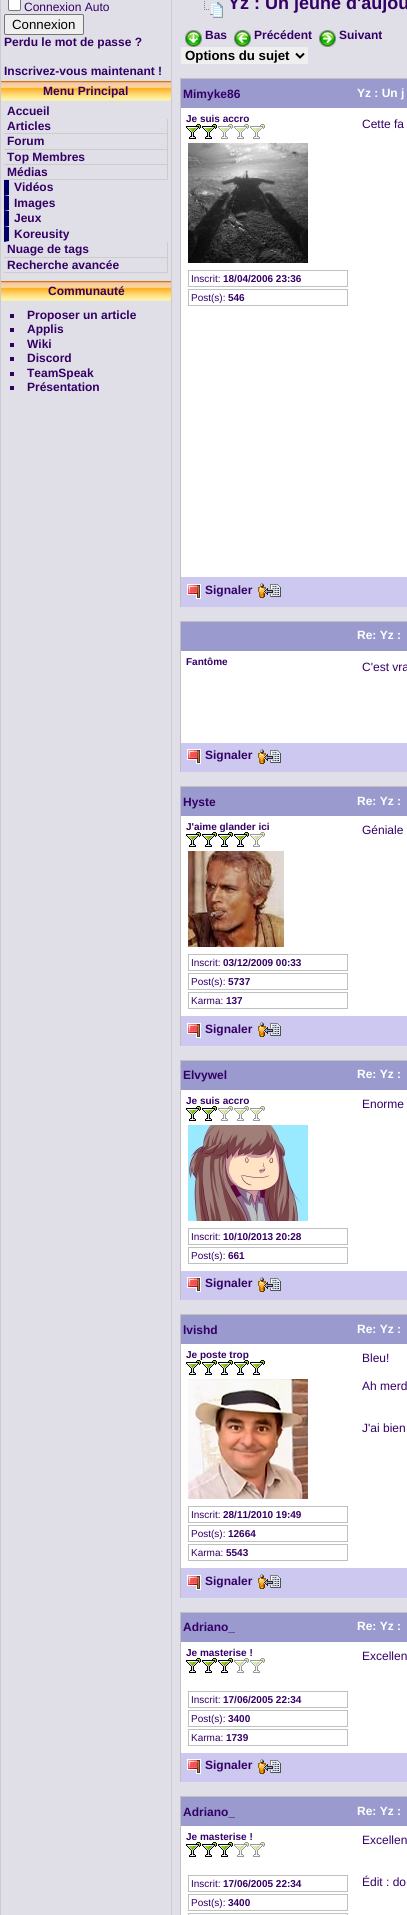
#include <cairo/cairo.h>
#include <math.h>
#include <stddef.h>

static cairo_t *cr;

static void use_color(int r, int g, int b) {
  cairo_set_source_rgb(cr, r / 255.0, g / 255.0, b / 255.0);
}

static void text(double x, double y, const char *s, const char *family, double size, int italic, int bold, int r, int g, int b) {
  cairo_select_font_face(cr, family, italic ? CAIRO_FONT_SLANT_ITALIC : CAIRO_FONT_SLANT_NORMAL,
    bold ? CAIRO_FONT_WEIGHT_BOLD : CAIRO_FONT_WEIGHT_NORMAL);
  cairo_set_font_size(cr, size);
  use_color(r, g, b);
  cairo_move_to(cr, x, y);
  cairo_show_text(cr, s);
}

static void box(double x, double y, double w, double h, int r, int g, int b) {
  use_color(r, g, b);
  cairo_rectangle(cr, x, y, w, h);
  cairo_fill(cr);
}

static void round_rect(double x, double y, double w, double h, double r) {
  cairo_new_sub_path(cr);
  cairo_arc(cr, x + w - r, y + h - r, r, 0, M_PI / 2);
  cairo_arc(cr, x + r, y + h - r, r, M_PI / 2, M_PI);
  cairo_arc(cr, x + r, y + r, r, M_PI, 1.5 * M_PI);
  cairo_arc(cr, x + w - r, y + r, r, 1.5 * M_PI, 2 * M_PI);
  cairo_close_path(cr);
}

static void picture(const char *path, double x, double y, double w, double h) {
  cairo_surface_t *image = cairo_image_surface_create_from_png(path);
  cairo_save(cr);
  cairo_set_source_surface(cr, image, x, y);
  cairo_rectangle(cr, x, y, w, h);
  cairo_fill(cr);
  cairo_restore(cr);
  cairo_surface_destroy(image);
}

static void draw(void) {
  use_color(224, 223, 231);
  cairo_paint(cr);
  box(0, 0, 1, 1915, 204, 204, 204);
  box(171, 0, 1, 1915, 204, 204, 204);
  use_color(255, 255, 255);
  round_rect(8.5, -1.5, 12, 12, 1.5);
  cairo_fill_preserve(cr);
  use_color(118, 118, 118);
  cairo_set_line_width(cr, 1);
  cairo_stroke(cr);
  use_color(239, 239, 239);
  round_rect(4.5, 14.5, 79, 20, 1.5);
  cairo_fill_preserve(cr);
  use_color(118, 118, 118);
  cairo_stroke(cr);
  picture("img_01.png", 1, 81, 170, 20);
  box(167, 119, 1, 61, 204, 204, 204);
  box(4, 133, 164, 1, 204, 204, 204);
  box(4, 149, 164, 1, 204, 204, 204);
  box(4, 164, 164, 1, 204, 204, 204);
  box(4, 179, 164, 1, 204, 204, 204);
  use_color(0, 0, 102);
  cairo_new_path(cr);
  cairo_move_to(cr, 4, 196);
  cairo_line_to(cr, 4, 180);
  cairo_line_to(cr, 9, 180);
  cairo_line_to(cr, 9, 195);
  cairo_close_path(cr);
  cairo_move_to(cr, 4, 211);
  cairo_line_to(cr, 4, 196);
  cairo_line_to(cr, 9, 196);
  cairo_line_to(cr, 9, 210);
  cairo_close_path(cr);
  cairo_move_to(cr, 4, 227);
  cairo_line_to(cr, 4, 211);
  cairo_line_to(cr, 9, 211);
  cairo_line_to(cr, 9, 226);
  cairo_close_path(cr);
  cairo_move_to(cr, 4, 242);
  cairo_line_to(cr, 4, 227);
  cairo_line_to(cr, 9, 227);
  cairo_line_to(cr, 9, 241);
  cairo_close_path(cr);
  cairo_fill(cr);
  box(167, 242, 1, 31, 204, 204, 204);
  box(4, 257, 164, 1, 204, 204, 204);
  box(4, 272, 164, 1, 204, 204, 204);
  picture("img_01.png", 1, 281, 170, 20);
  box(10, 314, 4, 4, 51, 0, 102);
  box(10, 328, 4, 4, 51, 0, 102);
  box(10, 343, 4, 4, 51, 0, 102);
  box(10, 357, 4, 4, 51, 0, 102);
  box(10, 372, 4, 4, 51, 0, 102);
  box(10, 386, 4, 4, 51, 0, 102);
  picture("img_02.png", 204, 1, 19, 17);
  picture("img_03.png", 185, 30, 17, 17);
  picture("img_04.png", 234, 30, 17, 17);
  picture("img_05.png", 319, 30, 17, 17);
  box(181, 47, 127, 17, 239, 239, 239);
  cairo_new_path(cr);
  cairo_move_to(cr, 296, 53.5);
  cairo_line_to(cr, 300, 57.5);
  cairo_line_to(cr, 304, 53.5);
  use_color(0, 0, 0);
  cairo_set_line_width(cr, 2);
  cairo_stroke(cr);
  box(180, 78, 227, 1, 192, 192, 192);
  box(180, 78, 1, 529, 192, 192, 192);
  box(181, 79, 226, 29, 154, 154, 206);
  box(181, 108, 174, 469, 255, 255, 255);
  picture("img_06.png", 186, 124, 79, 15);
  picture("img_07.png", 188, 143, 120, 120);
  cairo_rectangle(cr, 188.5, 270.5, 159, 16);
  use_color(192, 192, 192);
  cairo_set_line_width(cr, 1);
  cairo_stroke(cr);
  cairo_rectangle(cr, 188.5, 289.5, 159, 16);
  cairo_stroke(cr);
  box(355, 108, 52, 469, 255, 255, 255);
  box(181, 577, 226, 30, 205, 200, 240);
  picture("img_08.png", 187, 584, 14, 15);
  picture("img_09.png", 258, 583, 23, 15);
  box(180, 621, 227, 1, 192, 192, 192);
  box(180, 621, 1, 151, 192, 192, 192);
  box(181, 622, 226, 29, 154, 154, 206);
  box(181, 651, 174, 92, 255, 255, 255);
  box(355, 651, 52, 92, 255, 255, 255);
  box(181, 743, 226, 29, 205, 200, 240);
  picture("img_08.png", 187, 749, 14, 15);
  picture("img_09.png", 258, 749, 23, 15);
  box(180, 786, 227, 1, 192, 192, 192);
  box(180, 786, 1, 260, 192, 192, 192);
  box(181, 787, 226, 29, 154, 154, 206);
  box(181, 816, 174, 200, 255, 255, 255);
  picture("img_11.png", 188, 851, 96, 96);
  cairo_rectangle(cr, 188.5, 954.5, 159, 16);
  use_color(192, 192, 192);
  cairo_stroke(cr);
  cairo_rectangle(cr, 188.5, 973.5, 159, 16);
  cairo_stroke(cr);
  cairo_rectangle(cr, 188.5, 992.5, 159, 16);
  cairo_stroke(cr);
  box(355, 816, 52, 200, 255, 255, 255);
  box(181, 1016, 226, 30, 205, 200, 240);
  picture("img_08.png", 187, 1023, 14, 15);
  picture("img_09.png", 258, 1022, 23, 15);
  box(180, 1060, 227, 1, 192, 192, 192);
  box(180, 1060, 1, 240, 192, 192, 192);
  box(181, 1061, 226, 29, 154, 154, 206);
  box(181, 1090, 174, 181, 255, 255, 255);
  picture("img_06.png", 186, 1106, 79, 15);
  picture("img_12.png", 188, 1125, 120, 96);
  cairo_rectangle(cr, 188.5, 1228.5, 159, 16);
  use_color(192, 192, 192);
  cairo_stroke(cr);
  cairo_rectangle(cr, 188.5, 1247.5, 159, 16);
  cairo_stroke(cr);
  box(355, 1090, 52, 181, 255, 255, 255);
  box(181, 1271, 226, 29, 205, 200, 240);
  picture("img_08.png", 187, 1277, 14, 15);
  picture("img_09.png", 258, 1277, 23, 15);
  box(180, 1314, 227, 1, 192, 192, 192);
  box(180, 1314, 1, 284, 192, 192, 192);
  box(181, 1315, 226, 29, 154, 154, 206);
  box(181, 1344, 174, 224, 255, 255, 255);
  picture("img_14.png", 188, 1379, 120, 120);
  cairo_rectangle(cr, 188.5, 1506.5, 159, 16);
  use_color(192, 192, 192);
  cairo_stroke(cr);
  cairo_rectangle(cr, 188.5, 1525.5, 159, 16);
  cairo_stroke(cr);
  cairo_rectangle(cr, 188.5, 1544.5, 159, 16);
  cairo_stroke(cr);
  box(355, 1344, 52, 224, 255, 255, 255);
  box(181, 1568, 226, 30, 205, 200, 240);
  picture("img_08.png", 187, 1575, 14, 15);
  picture("img_09.png", 258, 1574, 23, 15);
  box(180, 1612, 227, 1, 192, 192, 192);
  box(180, 1612, 1, 170, 192, 192, 192);
  box(181, 1613, 226, 29, 154, 154, 206);
  box(181, 1642, 174, 111, 255, 255, 255);
  picture("img_15.png", 186, 1658, 79, 15);
  cairo_rectangle(cr, 188.5, 1691.5, 159, 16);
  use_color(192, 192, 192);
  cairo_stroke(cr);
  cairo_rectangle(cr, 188.5, 1710.5, 159, 16);
  cairo_stroke(cr);
  cairo_rectangle(cr, 188.5, 1729.5, 159, 16);
  cairo_stroke(cr);
  box(355, 1642, 52, 111, 255, 255, 255);
  box(181, 1753, 226, 29, 205, 200, 240);
  picture("img_08.png", 187, 1759, 14, 15);
  picture("img_09.png", 258, 1759, 23, 15);
  box(180, 1796, 227, 1, 192, 192, 192);
  box(180, 1796, 1, 119, 192, 192, 192);
  box(181, 1797, 226, 29, 154, 154, 206);
  box(181, 1826, 226, 89, 255, 255, 255);
  picture("img_15.png", 186, 1842, 79, 15);
  cairo_rectangle(cr, 188.5, 1875.5, 159, 16);
  use_color(192, 192, 192);
  cairo_stroke(cr);
  cairo_rectangle(cr, 188.5, 1894.5, 159, 16);
  cairo_stroke(cr);
  cairo_rectangle(cr, 188.5, 1913.5, 159, 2);
  cairo_stroke(cr);
  text(24, 11, "Connexion Auto", "Liberation Sans", 12, 0, 0, 51, 0, 102);
  text(12, 29, "Connexion", "Liberation Sans", 13.25, 0, 0, 0, 0, 0);
  text(4, 46, "Perdu le mot de passe ?", "Liberation Sans", 12, 0, 1, 51, 0, 102);
  text(4, 75, "Inscrivez-vous maintenant !", "Liberation Sans", 12, 0, 1, 51, 0, 102);
  text(43, 95, "Menu Principal", "Liberation Sans", 12, 0, 1, 51, 0, 102);
  text(7, 115, "Accueil", "Liberation Sans", 12, 0, 1, 51, 0, 102);
  text(7, 130, "Articles", "Liberation Sans", 12, 0, 1, 51, 0, 102);
  text(7, 145, "Forum", "Liberation Sans", 12, 0, 1, 51, 0, 102);
  text(7, 161, "Top Membres", "Liberation Sans", 12, 0, 1, 51, 0, 102);
  text(7, 176, "Médias", "Liberation Sans", 12, 0, 1, 51, 0, 102);
  text(14, 191, "Vidéos", "Liberation Sans", 12, 0, 1, 51, 0, 102);
  text(14, 207, "Images", "Liberation Sans", 12, 0, 1, 51, 0, 102);
  text(14, 222, "Jeux", "Liberation Sans", 12, 0, 1, 51, 0, 102);
  text(14, 238, "Koreusity", "Liberation Sans", 12, 0, 1, 51, 0, 102);
  text(7, 253, "Nuage de tags", "Liberation Sans", 12, 0, 1, 51, 0, 102);
  text(7, 269, "Recherche avancée", "Liberation Sans", 12, 0, 1, 51, 0, 102);
  text(48, 295, "Communauté", "Liberation Sans", 12, 0, 1, 51, 0, 102);
  text(27, 319, "Proposer un article", "Liberation Sans", 12, 0, 1, 51, 0, 102);
  text(27, 333, "Applis", "Liberation Sans", 12, 0, 1, 51, 0, 102);
  text(27, 348, "Wiki", "Liberation Sans", 12, 0, 1, 51, 0, 102);
  text(27, 362, "Discord", "Liberation Sans", 12, 0, 1, 51, 0, 102);
  text(27, 377, "TeamSpeak", "Liberation Sans", 12, 0, 1, 51, 0, 102);
  text(27, 391, "Présentation", "Liberation Sans", 12, 0, 1, 51, 0, 102);
  text(228, 9, "Yz : Un jeune d'aujou", "Liberation Sans", 18, 0, 1, 51, 0, 102);
  text(205, 39, "Bas", "Liberation Sans", 12, 0, 1, 51, 0, 102);
  text(254, 39, "Précédent", "Liberation Sans", 12, 0, 1, 51, 0, 102);
  text(339, 39, "Suivant", "Liberation Sans", 12, 0, 1, 51, 0, 102);
  text(185, 60, "Options du sujet", "Liberation Sans", 13.25, 0, 1, 0, 0, 0);
  text(183, 98, "Mimyke86", "Liberation Sans", 12, 0, 1, 51, 0, 102);
  text(357, 97, "Yz : Un j", "Liberation Sans", 12, 0, 1, 255, 255, 255);
  text(186, 122, "Je suis accro", "Liberation Sans", 10, 0, 1, 51, 0, 102);
  text(191, 282, "Inscrit:", "Liberation Sans", 10, 0, 0, 51, 0, 102);
  text(223, 282, "18/04/2006 23:36", "Liberation Sans", 10, 0, 1, 51, 0, 102);
  text(191, 301, "Post(s):", "Liberation Sans", 10, 0, 0, 51, 0, 102);
  text(228, 301, "546", "Liberation Sans", 10, 0, 1, 51, 0, 102);
  text(362, 128, "Cette fa", "Liberation Sans", 12, 0, 0, 51, 0, 102);
  text(205, 594, "Signaler", "Liberation Sans", 12, 0, 1, 51, 0, 102);
  text(357, 639, "Re: Yz :", "Liberation Sans", 12, 0, 1, 255, 255, 255);
  text(186, 665, "Fantôme", "Liberation Sans", 10, 0, 1, 51, 0, 102);
  text(362, 671, "C'est vra", "Liberation Sans", 12, 0, 0, 51, 0, 102);
  text(205, 759, "Signaler", "Liberation Sans", 12, 0, 1, 51, 0, 102);
  text(183, 806, "Hyste", "Liberation Sans", 12, 0, 1, 51, 0, 102);
  text(357, 805, "Re: Yz :", "Liberation Sans", 12, 0, 1, 255, 255, 255);
  text(186, 830, "J'aime glander ici", "Liberation Sans", 10, 0, 1, 51, 0, 102);
  picture("img_10.png", 186, 832, 79, 15);
  text(191, 966, "Inscrit:", "Liberation Sans", 10, 0, 0, 51, 0, 102);
  text(223, 966, "03/12/2009 00:33", "Liberation Sans", 10, 0, 1, 51, 0, 102);
  text(191, 985, "Post(s):", "Liberation Sans", 10, 0, 0, 51, 0, 102);
  text(228, 985, "5737", "Liberation Sans", 10, 0, 1, 51, 0, 102);
  text(191, 1004, "Karma:", "Liberation Sans", 10, 0, 0, 51, 0, 102);
  text(226, 1004, "137", "Liberation Sans", 10, 0, 1, 51, 0, 102);
  text(362, 834, "Géniale", "Liberation Sans", 12, 0, 0, 51, 0, 102);
  text(205, 1033, "Signaler", "Liberation Sans", 12, 0, 1, 51, 0, 102);
  text(183, 1079, "Elvywel", "Liberation Sans", 12, 0, 1, 51, 0, 102);
  text(357, 1078, "Re: Yz :", "Liberation Sans", 12, 0, 1, 255, 255, 255);
  text(186, 1104, "Je suis accro", "Liberation Sans", 10, 0, 1, 51, 0, 102);
  text(191, 1240, "Inscrit:", "Liberation Sans", 10, 0, 0, 51, 0, 102);
  text(223, 1240, "10/10/2013 20:28", "Liberation Sans", 10, 0, 1, 51, 0, 102);
  text(191, 1259, "Post(s):", "Liberation Sans", 10, 0, 0, 51, 0, 102);
  text(228, 1259, "661", "Liberation Sans", 10, 0, 1, 51, 0, 102);
  text(362, 1108, "Enorme", "Liberation Sans", 12, 0, 0, 51, 0, 102);
  text(205, 1287, "Signaler", "Liberation Sans", 12, 0, 1, 51, 0, 102);
  text(183, 1334, "lvishd", "Liberation Sans", 12, 0, 1, 51, 0, 102);
  text(357, 1333, "Re: Yz :", "Liberation Sans", 12, 0, 1, 255, 255, 255);
  text(186, 1358, "Je poste trop", "Liberation Sans", 10, 0, 1, 51, 0, 102);
  picture("img_13.png", 186, 1360, 79, 15);
  text(191, 1518, "Inscrit:", "Liberation Sans", 10, 0, 0, 51, 0, 102);
  text(223, 1518, "28/11/2010 19:49", "Liberation Sans", 10, 0, 1, 51, 0, 102);
  text(191, 1537, "Post(s):", "Liberation Sans", 10, 0, 0, 51, 0, 102);
  text(228, 1537, "12664", "Liberation Sans", 10, 0, 1, 51, 0, 102);
  text(191, 1556, "Karma:", "Liberation Sans", 10, 0, 0, 51, 0, 102);
  text(226, 1556, "5543", "Liberation Sans", 10, 0, 1, 51, 0, 102);
  text(362, 1362, "Bleu!", "Liberation Sans", 12, 0, 0, 51, 0, 102);
  text(362, 1390, "Ah merd", "Liberation Sans", 12, 0, 0, 51, 0, 102);
  text(362, 1432, "J'ai bien", "Liberation Sans", 12, 0, 0, 51, 0, 102);
  text(205, 1585, "Signaler", "Liberation Sans", 12, 0, 1, 51, 0, 102);
  text(183, 1631, "Adriano_", "Liberation Sans", 12, 0, 1, 51, 0, 102);
  text(357, 1630, "Re: Yz :", "Liberation Sans", 12, 0, 1, 255, 255, 255);
  text(186, 1656, "Je masterise !", "Liberation Sans", 10, 0, 1, 51, 0, 102);
  text(191, 1703, "Inscrit:", "Liberation Sans", 10, 0, 0, 51, 0, 102);
  text(223, 1703, "17/06/2005 22:34", "Liberation Sans", 10, 0, 1, 51, 0, 102);
  text(191, 1722, "Post(s):", "Liberation Sans", 10, 0, 0, 51, 0, 102);
  text(228, 1722, "3400", "Liberation Sans", 10, 0, 1, 51, 0, 102);
  text(191, 1741, "Karma:", "Liberation Sans", 10, 0, 0, 51, 0, 102);
  text(226, 1741, "1739", "Liberation Sans", 10, 0, 1, 51, 0, 102);
  text(362, 1660, "Excellen", "Liberation Sans", 12, 0, 0, 51, 0, 102);
  text(205, 1769, "Signaler", "Liberation Sans", 12, 0, 1, 51, 0, 102);
  text(183, 1816, "Adriano_", "Liberation Sans", 12, 0, 1, 51, 0, 102);
  text(357, 1815, "Re: Yz :", "Liberation Sans", 12, 0, 1, 255, 255, 255);
  text(186, 1840, "Je masterise !", "Liberation Sans", 10, 0, 1, 51, 0, 102);
  text(191, 1887, "Inscrit:", "Liberation Sans", 10, 0, 0, 51, 0, 102);
  text(223, 1887, "17/06/2005 22:34", "Liberation Sans", 10, 0, 1, 51, 0, 102);
  text(191, 1906, "Post(s):", "Liberation Sans", 10, 0, 0, 51, 0, 102);
  text(228, 1906, "3400", "Liberation Sans", 10, 0, 1, 51, 0, 102);
  text(362, 1844, "Excellen", "Liberation Sans", 12, 0, 0, 51, 0, 102);
  text(362, 1886, "Édit : do", "Liberation Sans", 12, 0, 0, 51, 0, 102);
}

int main(void) {
  cairo_surface_t *surface = cairo_image_surface_create(CAIRO_FORMAT_RGB24, 407, 1915);
  cr = cairo_create(surface);
  cairo_font_options_t *options = cairo_font_options_create();
  cairo_font_options_set_hint_metrics(options, CAIRO_HINT_METRICS_OFF);
  cairo_font_options_set_hint_style(options, CAIRO_HINT_STYLE_NONE);
  cairo_set_font_options(cr, options);
  cairo_set_miter_limit(cr, 4);
  draw();
  cairo_surface_write_to_png(surface, "out.png");
  cairo_font_options_destroy(options);
  cairo_destroy(cr);
  cairo_surface_destroy(surface);
  return 0;
}
